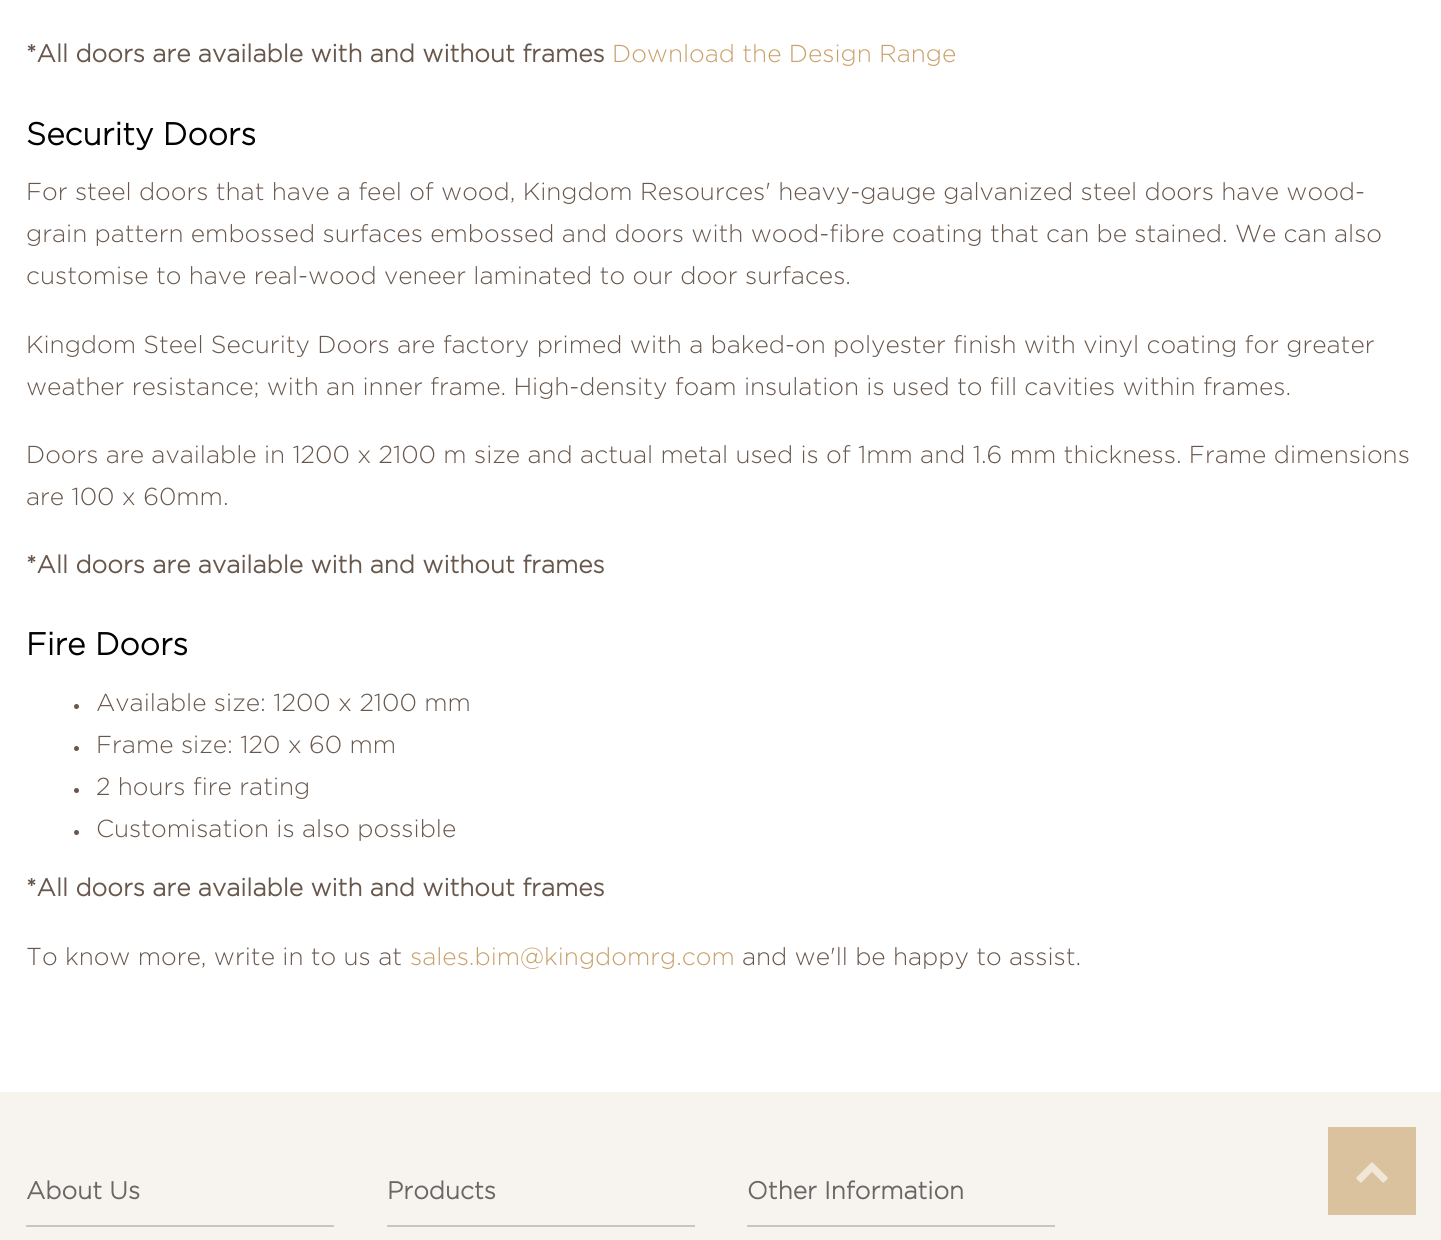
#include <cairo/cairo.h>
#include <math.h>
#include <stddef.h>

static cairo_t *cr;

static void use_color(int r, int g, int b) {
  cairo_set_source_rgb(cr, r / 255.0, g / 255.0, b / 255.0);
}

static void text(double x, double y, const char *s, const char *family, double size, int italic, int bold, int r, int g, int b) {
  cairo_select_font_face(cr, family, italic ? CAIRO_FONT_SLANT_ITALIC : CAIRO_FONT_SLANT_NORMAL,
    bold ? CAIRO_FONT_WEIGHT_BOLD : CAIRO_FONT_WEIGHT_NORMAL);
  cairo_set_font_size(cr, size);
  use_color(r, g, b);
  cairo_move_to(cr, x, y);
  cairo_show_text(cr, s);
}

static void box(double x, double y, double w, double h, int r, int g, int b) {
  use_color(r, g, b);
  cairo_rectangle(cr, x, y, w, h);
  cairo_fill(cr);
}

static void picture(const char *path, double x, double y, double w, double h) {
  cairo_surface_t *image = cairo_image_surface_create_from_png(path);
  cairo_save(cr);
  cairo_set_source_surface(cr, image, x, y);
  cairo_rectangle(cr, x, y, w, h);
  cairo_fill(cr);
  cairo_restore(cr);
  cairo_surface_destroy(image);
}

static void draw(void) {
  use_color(255, 255, 255);
  cairo_paint(cr);
  use_color(104, 87, 76);
  cairo_arc(cr, 76.5, 706.5, 2.5, 0, 2 * M_PI);
  cairo_fill(cr);
  cairo_arc(cr, 76.5, 748.5, 2.5, 0, 2 * M_PI);
  cairo_fill(cr);
  cairo_arc(cr, 76.5, 790.5, 2.5, 0, 2 * M_PI);
  cairo_fill(cr);
  cairo_arc(cr, 76.5, 832.5, 2.5, 0, 2 * M_PI);
  cairo_fill(cr);
  box(0, 1092, 1441, 148, 247, 244, 239);
  box(26, 1225, 308, 2, 200, 197, 197);
  box(387, 1225, 308, 2, 200, 197, 197);
  box(747, 1225, 308, 2, 200, 197, 197);
  box(1328, 1127, 88, 88, 219, 194, 158);
  picture("img_01.png", 1356, 1162, 32, 21);
  text(26, 62, "*All doors are available with and without frames", "Gotham", 24.5, 0, 1, 104, 87, 76);
  text(612, 62, "Download the Design Range", "Gotham Light", 24.5, 0, 0, 200, 160, 104);
  text(26, 145, "Security Doors", "Gotham", 31.5, 0, 1, 0, 0, 0);
  text(26, 200, "For steel doors that have a feel of wood, Kingdom Resources' heavy-gauge galvanized steel doors have wood-", "Gotham Light", 24.5, 0, 0, 104, 87, 76);
  text(26, 242, "grain pattern embossed surfaces embossed and doors with wood-fibre coating that can be stained. We can also", "Gotham Light", 24.5, 0, 0, 104, 87, 76);
  text(26, 284, "customise to have real-wood veneer laminated to our door surfaces.", "Gotham Light", 24.5, 0, 0, 104, 87, 76);
  text(26, 353, "Kingdom Steel Security Doors are factory primed with a baked-on polyester finish with vinyl coating for greater", "Gotham Light", 24.5, 0, 0, 104, 87, 76);
  text(26, 395, "weather resistance; with an inner frame. High-density foam insulation is used to fill cavities within frames.", "Gotham Light", 24.5, 0, 0, 104, 87, 76);
  text(26, 463, "Doors are available in 1200 x 2100 m size and actual metal used is of 1mm and 1.6 mm thickness. Frame dimensions", "Gotham Light", 24.5, 0, 0, 104, 87, 76);
  text(26, 505, "are 100 x 60mm.", "Gotham Light", 24.5, 0, 0, 104, 87, 76);
  text(26, 573, "*All doors are available with and without frames", "Gotham", 24.5, 0, 1, 104, 87, 76);
  text(26, 655, "Fire Doors", "Gotham", 31.5, 0, 1, 0, 0, 0);
  text(96, 711, "Available size: 1200 x 2100 mm", "Gotham Light", 24.5, 0, 0, 104, 87, 76);
  text(96, 753, "Frame size: 120 x 60 mm", "Gotham Light", 24.5, 0, 0, 104, 87, 76);
  text(96, 795, "2 hours fire rating", "Gotham Light", 24.5, 0, 0, 104, 87, 76);
  text(96, 837, "Customisation is also possible", "Gotham Light", 24.5, 0, 0, 104, 87, 76);
  text(26, 896, "*All doors are available with and without frames", "Gotham", 24.5, 0, 1, 104, 87, 76);
  text(26, 965, "To know more, write in to us at", "Gotham Light", 24.5, 0, 0, 104, 87, 76);
  text(410, 965, "sales.bim@kingdomrg.com", "Gotham Light", 24.5, 0, 0, 200, 160, 104);
  text(742, 965, "and we'll be happy to assist.", "Gotham Light", 24.5, 0, 0, 104, 87, 76);
  text(26, 1199, "About Us", "Gotham", 24.5, 0, 1, 103, 103, 103);
  text(387, 1199, "Products", "Gotham", 24.5, 0, 1, 103, 103, 103);
  text(747, 1199, "Other Information", "Gotham", 24.5, 0, 1, 103, 103, 103);
}

int main(void) {
  cairo_surface_t *surface = cairo_image_surface_create(CAIRO_FORMAT_RGB24, 1441, 1240);
  cr = cairo_create(surface);
  cairo_font_options_t *options = cairo_font_options_create();
  cairo_font_options_set_hint_metrics(options, CAIRO_HINT_METRICS_OFF);
  cairo_font_options_set_hint_style(options, CAIRO_HINT_STYLE_NONE);
  cairo_set_font_options(cr, options);
  cairo_set_miter_limit(cr, 4);
  draw();
  cairo_surface_write_to_png(surface, "out.png");
  cairo_font_options_destroy(options);
  cairo_destroy(cr);
  cairo_surface_destroy(surface);
  return 0;
}
